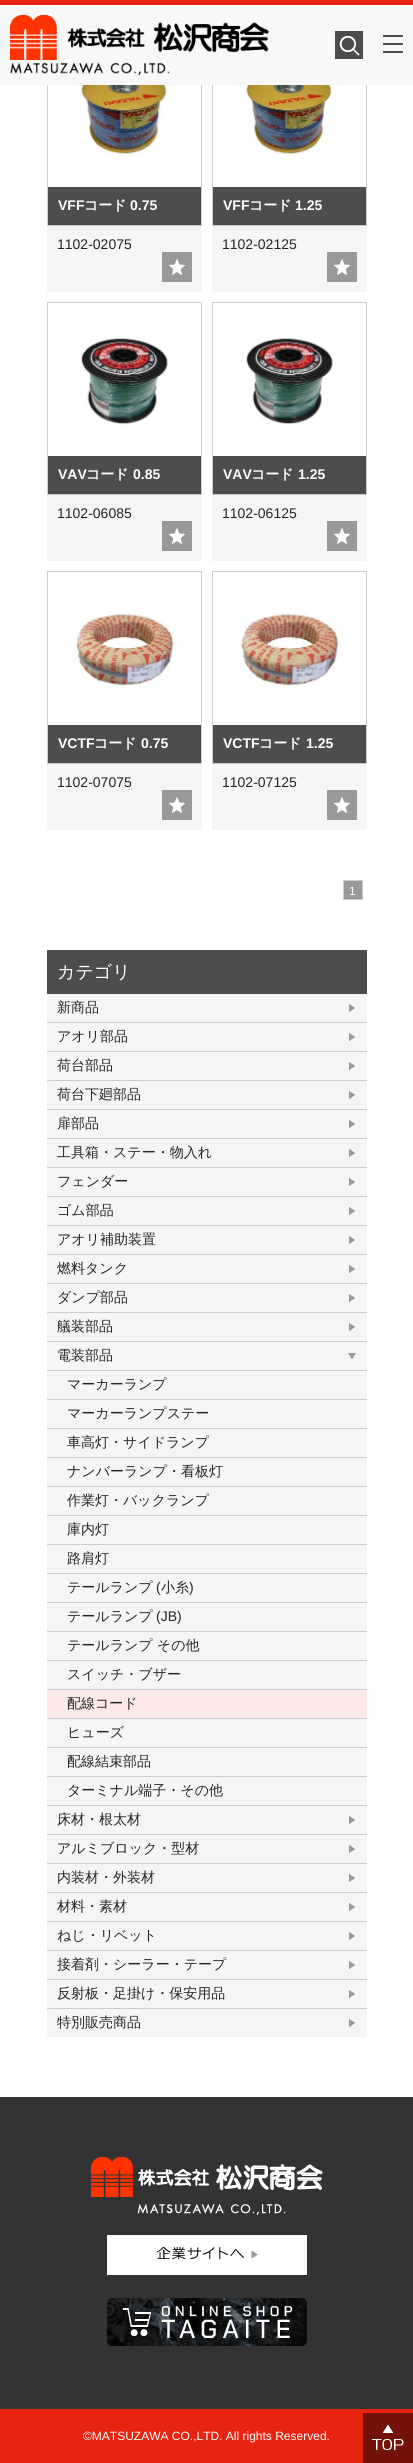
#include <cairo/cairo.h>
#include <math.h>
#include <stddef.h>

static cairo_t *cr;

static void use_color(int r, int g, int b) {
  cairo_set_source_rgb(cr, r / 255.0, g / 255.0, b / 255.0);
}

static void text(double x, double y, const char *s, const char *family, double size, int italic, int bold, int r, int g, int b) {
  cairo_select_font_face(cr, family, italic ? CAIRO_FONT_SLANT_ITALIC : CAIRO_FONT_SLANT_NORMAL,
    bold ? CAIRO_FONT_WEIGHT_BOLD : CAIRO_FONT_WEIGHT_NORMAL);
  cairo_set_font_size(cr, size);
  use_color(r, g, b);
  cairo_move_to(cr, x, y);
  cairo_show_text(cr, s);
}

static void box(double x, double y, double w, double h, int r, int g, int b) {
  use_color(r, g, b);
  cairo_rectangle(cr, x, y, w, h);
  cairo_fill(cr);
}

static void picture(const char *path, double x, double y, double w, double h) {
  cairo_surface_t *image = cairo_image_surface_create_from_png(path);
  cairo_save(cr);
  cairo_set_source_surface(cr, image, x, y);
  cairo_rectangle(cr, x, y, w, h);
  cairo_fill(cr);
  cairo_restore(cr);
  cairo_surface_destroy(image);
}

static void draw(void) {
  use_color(255, 255, 255);
  cairo_paint(cr);
  cairo_rectangle(cr, 47.5, 33.5, 154, 192);
  use_color(204, 204, 204);
  cairo_set_line_width(cr, 1);
  cairo_stroke(cr);
  cairo_rectangle(cr, 212.5, 33.5, 154, 192);
  cairo_stroke(cr);
  box(0, 5, 413, 80, 248, 248, 248);
  box(0, 0, 413, 5, 231, 36, 16);
  picture("img_01.png", 10, 15, 260, 60);
  picture("img_02.png", 335, 31, 28, 28);
  picture("img_03.png", 383, 35, 20, 18);
  picture("img_04.png", 80, 85, 88, 72);
  box(48, 187, 153, 38, 77, 77, 77);
  box(47, 226, 155, 66, 245, 245, 245);
  box(162, 252, 30, 30, 153, 153, 153);
  picture("img_05.png", 169, 259, 16, 16);
  picture("img_04.png", 245, 85, 88, 72);
  box(213, 187, 153, 38, 77, 77, 77);
  box(212, 226, 155, 66, 245, 245, 245);
  box(327, 252, 30, 30, 153, 153, 153);
  picture("img_05.png", 334, 259, 16, 16);
  cairo_rectangle(cr, 47.5, 302.5, 154, 192);
  use_color(204, 204, 204);
  cairo_stroke(cr);
  picture("img_06.png", 81, 338, 87, 87);
  box(48, 456, 153, 38, 77, 77, 77);
  box(47, 495, 155, 66, 245, 245, 245);
  box(162, 521, 30, 30, 153, 153, 153);
  picture("img_05.png", 169, 528, 16, 16);
  cairo_rectangle(cr, 212.5, 302.5, 154, 192);
  use_color(204, 204, 204);
  cairo_stroke(cr);
  picture("img_06.png", 246, 338, 87, 87);
  box(213, 456, 153, 38, 77, 77, 77);
  box(212, 495, 155, 66, 245, 245, 245);
  box(327, 521, 30, 30, 153, 153, 153);
  picture("img_05.png", 334, 528, 16, 16);
  cairo_rectangle(cr, 47.5, 571.5, 154, 192);
  use_color(204, 204, 204);
  cairo_stroke(cr);
  picture("img_07.png", 74, 609, 103, 78);
  box(48, 725, 153, 38, 77, 77, 77);
  box(47, 764, 155, 66, 245, 245, 245);
  box(162, 790, 30, 30, 153, 153, 153);
  picture("img_05.png", 169, 797, 16, 16);
  cairo_rectangle(cr, 212.5, 571.5, 154, 192);
  use_color(204, 204, 204);
  cairo_stroke(cr);
  picture("img_07.png", 239, 609, 103, 78);
  box(213, 725, 153, 38, 77, 77, 77);
  box(212, 764, 155, 66, 245, 245, 245);
  box(327, 790, 30, 30, 153, 153, 153);
  picture("img_05.png", 334, 797, 16, 16);
  cairo_rectangle(cr, 343.5, 880.5, 19, 19);
  cairo_fill_preserve(cr);
  use_color(204, 204, 204);
  cairo_stroke(cr);
  box(47, 950, 320, 44, 77, 77, 77);
  box(47, 994, 320, 28, 245, 245, 245);
  picture("img_08.png", 349, 1004, 6, 8);
  box(47, 1023, 320, 28, 245, 245, 245);
  box(47, 1022, 320, 1, 204, 204, 204);
  picture("img_08.png", 349, 1033, 6, 8);
  box(47, 1052, 320, 28, 245, 245, 245);
  box(47, 1051, 320, 1, 204, 204, 204);
  picture("img_08.png", 349, 1062, 6, 8);
  box(47, 1081, 320, 28, 245, 245, 245);
  box(47, 1080, 320, 1, 204, 204, 204);
  picture("img_08.png", 349, 1091, 6, 8);
  box(47, 1110, 320, 28, 245, 245, 245);
  box(47, 1109, 320, 1, 204, 204, 204);
  picture("img_08.png", 349, 1120, 6, 8);
  box(47, 1139, 320, 28, 245, 245, 245);
  box(47, 1138, 320, 1, 204, 204, 204);
  picture("img_08.png", 349, 1149, 6, 8);
  box(47, 1168, 320, 28, 245, 245, 245);
  box(47, 1167, 320, 1, 204, 204, 204);
  picture("img_08.png", 349, 1178, 6, 8);
  box(47, 1197, 320, 28, 245, 245, 245);
  box(47, 1196, 320, 1, 204, 204, 204);
  picture("img_08.png", 349, 1207, 6, 8);
  box(47, 1226, 320, 28, 245, 245, 245);
  box(47, 1225, 320, 1, 204, 204, 204);
  picture("img_08.png", 349, 1236, 6, 8);
  box(47, 1255, 320, 28, 245, 245, 245);
  box(47, 1254, 320, 1, 204, 204, 204);
  picture("img_08.png", 349, 1265, 6, 8);
  box(47, 1284, 320, 28, 245, 245, 245);
  box(47, 1283, 320, 1, 204, 204, 204);
  picture("img_08.png", 349, 1294, 6, 8);
  box(47, 1313, 320, 28, 245, 245, 245);
  box(47, 1312, 320, 1, 204, 204, 204);
  picture("img_08.png", 349, 1323, 6, 8);
  box(47, 1342, 320, 463, 245, 245, 245);
  box(47, 1341, 320, 1, 204, 204, 204);
  picture("img_09.png", 348, 1353, 8, 6);
  box(47, 1370, 320, 1, 204, 204, 204);
  box(47, 1399, 320, 1, 204, 204, 204);
  box(47, 1428, 320, 1, 204, 204, 204);
  box(47, 1457, 320, 1, 204, 204, 204);
  box(47, 1486, 320, 1, 204, 204, 204);
  box(47, 1515, 320, 1, 204, 204, 204);
  box(47, 1544, 320, 1, 204, 204, 204);
  box(47, 1573, 320, 1, 204, 204, 204);
  box(47, 1602, 320, 1, 204, 204, 204);
  box(47, 1631, 320, 1, 204, 204, 204);
  box(47, 1660, 320, 1, 204, 204, 204);
  box(47, 1690, 320, 28, 253, 233, 232);
  box(47, 1689, 320, 1, 204, 204, 204);
  box(47, 1718, 320, 1, 204, 204, 204);
  box(47, 1747, 320, 1, 204, 204, 204);
  box(47, 1776, 320, 1, 204, 204, 204);
  box(47, 1806, 320, 28, 245, 245, 245);
  box(47, 1805, 320, 1, 204, 204, 204);
  picture("img_08.png", 349, 1816, 6, 8);
  box(47, 1835, 320, 28, 245, 245, 245);
  box(47, 1834, 320, 1, 204, 204, 204);
  picture("img_08.png", 349, 1845, 6, 8);
  box(47, 1864, 320, 28, 245, 245, 245);
  box(47, 1863, 320, 1, 204, 204, 204);
  picture("img_08.png", 349, 1874, 6, 8);
  box(47, 1893, 320, 28, 245, 245, 245);
  box(47, 1892, 320, 1, 204, 204, 204);
  picture("img_08.png", 349, 1903, 6, 8);
  box(47, 1922, 320, 28, 245, 245, 245);
  box(47, 1921, 320, 1, 204, 204, 204);
  picture("img_08.png", 349, 1932, 6, 8);
  box(47, 1951, 320, 28, 245, 245, 245);
  box(47, 1950, 320, 1, 204, 204, 204);
  picture("img_08.png", 349, 1961, 6, 8);
  box(47, 1980, 320, 28, 245, 245, 245);
  box(47, 1979, 320, 1, 204, 204, 204);
  picture("img_08.png", 349, 1990, 6, 8);
  box(47, 2009, 320, 28, 245, 245, 245);
  box(47, 2008, 320, 1, 204, 204, 204);
  picture("img_08.png", 349, 2019, 6, 8);
  box(0, 2097, 413, 312, 51, 51, 51);
  picture("img_10.png", 91, 2157, 232, 58);
  picture("img_11.png", 107, 2235, 200, 40);
  picture("img_12.png", 107, 2298, 200, 48);
  box(0, 2409, 413, 54, 231, 36, 16);
  picture("img_13.png", 363, 2413, 50, 50);
  text(58, 210, "VFF", "Liberation Sans", 14, 0, 1, 255, 255, 255);
  text(84, 210, "コード", "WenQuanYi Zen Hei", 14, 0, 1, 255, 255, 255);
  text(130, 210, "0.75", "Liberation Sans", 14, 0, 1, 255, 255, 255);
  text(57, 249, "1102-02075", "Liberation Sans", 14, 0, 0, 37, 37, 37);
  text(223, 210, "VFF", "Liberation Sans", 14, 0, 1, 255, 255, 255);
  text(249, 210, "コード", "WenQuanYi Zen Hei", 14, 0, 1, 255, 255, 255);
  text(295, 210, "1.25", "Liberation Sans", 14, 0, 1, 255, 255, 255);
  text(222, 249, "1102-02125", "Liberation Sans", 14, 0, 0, 37, 37, 37);
  text(58, 479, "VAV", "Liberation Sans", 14, 0, 1, 255, 255, 255);
  text(86, 479, "コード", "WenQuanYi Zen Hei", 14, 0, 1, 255, 255, 255);
  text(133, 479, "0.85", "Liberation Sans", 14, 0, 1, 255, 255, 255);
  text(57, 518, "1102-06085", "Liberation Sans", 14, 0, 0, 37, 37, 37);
  text(223, 479, "VAV", "Liberation Sans", 14, 0, 1, 255, 255, 255);
  text(251, 479, "コード", "WenQuanYi Zen Hei", 14, 0, 1, 255, 255, 255);
  text(298, 479, "1.25", "Liberation Sans", 14, 0, 1, 255, 255, 255);
  text(222, 518, "1102-06125", "Liberation Sans", 14, 0, 0, 37, 37, 37);
  text(58, 748, "VCTF", "Liberation Sans", 14, 0, 1, 255, 255, 255);
  text(94, 748, "コード", "WenQuanYi Zen Hei", 14, 0, 1, 255, 255, 255);
  text(141, 748, "0.75", "Liberation Sans", 14, 0, 1, 255, 255, 255);
  text(57, 787, "1102-07075", "Liberation Sans", 14, 0, 0, 37, 37, 37);
  text(223, 748, "VCTF", "Liberation Sans", 14, 0, 1, 255, 255, 255);
  text(259, 748, "コード", "WenQuanYi Zen Hei", 14, 0, 1, 255, 255, 255);
  text(306, 748, "1.25", "Liberation Sans", 14, 0, 1, 255, 255, 255);
  text(222, 787, "1102-07125", "Liberation Sans", 14, 0, 0, 37, 37, 37);
  text(349, 895, "1", "Liberation Sans", 12, 0, 0, 255, 255, 255);
  text(57, 978, "カテゴリ", "WenQuanYi Zen Hei Medium", 18, 0, 0, 255, 255, 255);
  text(57, 1012, "新商品", "WenQuanYi Zen Hei Medium", 14, 0, 0, 37, 37, 37);
  text(57, 1041, "アオリ部品", "WenQuanYi Zen Hei Medium", 14, 0, 0, 37, 37, 37);
  text(57, 1070, "荷台部品", "WenQuanYi Zen Hei Medium", 14, 0, 0, 37, 37, 37);
  text(57, 1099, "荷台下廻部品", "WenQuanYi Zen Hei Medium", 14, 0, 0, 37, 37, 37);
  text(57, 1128, "扉部品", "WenQuanYi Zen Hei Medium", 14, 0, 0, 37, 37, 37);
  text(57, 1157, "工具箱・ステー・物入れ", "WenQuanYi Zen Hei Medium", 14, 0, 0, 37, 37, 37);
  text(57, 1186, "フェンダー", "WenQuanYi Zen Hei Medium", 14, 0, 0, 37, 37, 37);
  text(57, 1215, "ゴム部品", "WenQuanYi Zen Hei Medium", 14, 0, 0, 37, 37, 37);
  text(57, 1244, "アオリ補助装置", "WenQuanYi Zen Hei Medium", 14, 0, 0, 37, 37, 37);
  text(57, 1273, "燃料タンク", "WenQuanYi Zen Hei Medium", 14, 0, 0, 37, 37, 37);
  text(57, 1302, "ダンプ部品", "WenQuanYi Zen Hei Medium", 14, 0, 0, 37, 37, 37);
  text(57, 1331, "艤装部品", "WenQuanYi Zen Hei Medium", 14, 0, 0, 37, 37, 37);
  text(57, 1360, "電装部品", "WenQuanYi Zen Hei Medium", 14, 0, 0, 37, 37, 37);
  text(67, 1389, "マーカーランプ", "WenQuanYi Zen Hei Medium", 14, 0, 0, 37, 37, 37);
  text(67, 1418, "マーカーランプステー", "WenQuanYi Zen Hei Medium", 14, 0, 0, 37, 37, 37);
  text(67, 1447, "車高灯・サイドランプ", "WenQuanYi Zen Hei Medium", 14, 0, 0, 37, 37, 37);
  text(67, 1476, "ナンバーランプ・看板灯", "WenQuanYi Zen Hei Medium", 14, 0, 0, 37, 37, 37);
  text(67, 1505, "作業灯・バックランプ", "WenQuanYi Zen Hei Medium", 14, 0, 0, 37, 37, 37);
  text(67, 1534, "庫内灯", "WenQuanYi Zen Hei Medium", 14, 0, 0, 37, 37, 37);
  text(67, 1563, "路肩灯", "WenQuanYi Zen Hei Medium", 14, 0, 0, 37, 37, 37);
  text(67, 1592, "テールランプ", "WenQuanYi Zen Hei Medium", 14, 0, 0, 37, 37, 37);
  text(156, 1592, "(", "Liberation Sans", 14, 0, 0, 37, 37, 37);
  text(161, 1592, "小糸", "WenQuanYi Zen Hei Medium", 14, 0, 0, 37, 37, 37);
  text(189, 1592, ")", "Liberation Sans", 14, 0, 0, 37, 37, 37);
  text(67, 1621, "テールランプ", "WenQuanYi Zen Hei Medium", 14, 0, 0, 37, 37, 37);
  text(156, 1621, "(JB)", "Liberation Sans", 14, 0, 0, 37, 37, 37);
  text(67, 1650, "テールランプ その他", "WenQuanYi Zen Hei Medium", 14, 0, 0, 37, 37, 37);
  text(67, 1679, "スイッチ・ブザー", "WenQuanYi Zen Hei Medium", 14, 0, 0, 37, 37, 37);
  text(67, 1708, "配線コード", "WenQuanYi Zen Hei Medium", 14, 0, 0, 37, 37, 37);
  text(67, 1737, "ヒューズ", "WenQuanYi Zen Hei Medium", 14, 0, 0, 37, 37, 37);
  text(67, 1766, "配線結束部品", "WenQuanYi Zen Hei Medium", 14, 0, 0, 37, 37, 37);
  text(67, 1795, "ターミナル端子・その他", "WenQuanYi Zen Hei Medium", 14, 0, 0, 37, 37, 37);
  text(57, 1824, "床材・根太材", "WenQuanYi Zen Hei Medium", 14, 0, 0, 37, 37, 37);
  text(57, 1853, "アルミブロック・型材", "WenQuanYi Zen Hei Medium", 14, 0, 0, 37, 37, 37);
  text(57, 1882, "内装材・外装材", "WenQuanYi Zen Hei Medium", 14, 0, 0, 37, 37, 37);
  text(57, 1911, "材料・素材", "WenQuanYi Zen Hei Medium", 14, 0, 0, 37, 37, 37);
  text(57, 1940, "ねじ・リベット", "WenQuanYi Zen Hei Medium", 14, 0, 0, 37, 37, 37);
  text(57, 1969, "接着剤・シーラー・テープ", "WenQuanYi Zen Hei Medium", 14, 0, 0, 37, 37, 37);
  text(57, 1998, "反射板・足掛け・保安用品", "WenQuanYi Zen Hei Medium", 14, 0, 0, 37, 37, 37);
  text(57, 2027, "特別販売商品", "WenQuanYi Zen Hei Medium", 14, 0, 0, 37, 37, 37);
  text(83, 2440, "©MATSUZAWA CO.,LTD. All rights Reserved.", "Liberation Sans", 12, 0, 0, 255, 255, 255);
}

int main(void) {
  cairo_surface_t *surface = cairo_image_surface_create(CAIRO_FORMAT_RGB24, 413, 2463);
  cr = cairo_create(surface);
  cairo_font_options_t *options = cairo_font_options_create();
  cairo_font_options_set_hint_metrics(options, CAIRO_HINT_METRICS_OFF);
  cairo_font_options_set_hint_style(options, CAIRO_HINT_STYLE_NONE);
  cairo_set_font_options(cr, options);
  cairo_set_miter_limit(cr, 4);
  draw();
  cairo_surface_write_to_png(surface, "out.png");
  cairo_font_options_destroy(options);
  cairo_destroy(cr);
  cairo_surface_destroy(surface);
  return 0;
}
